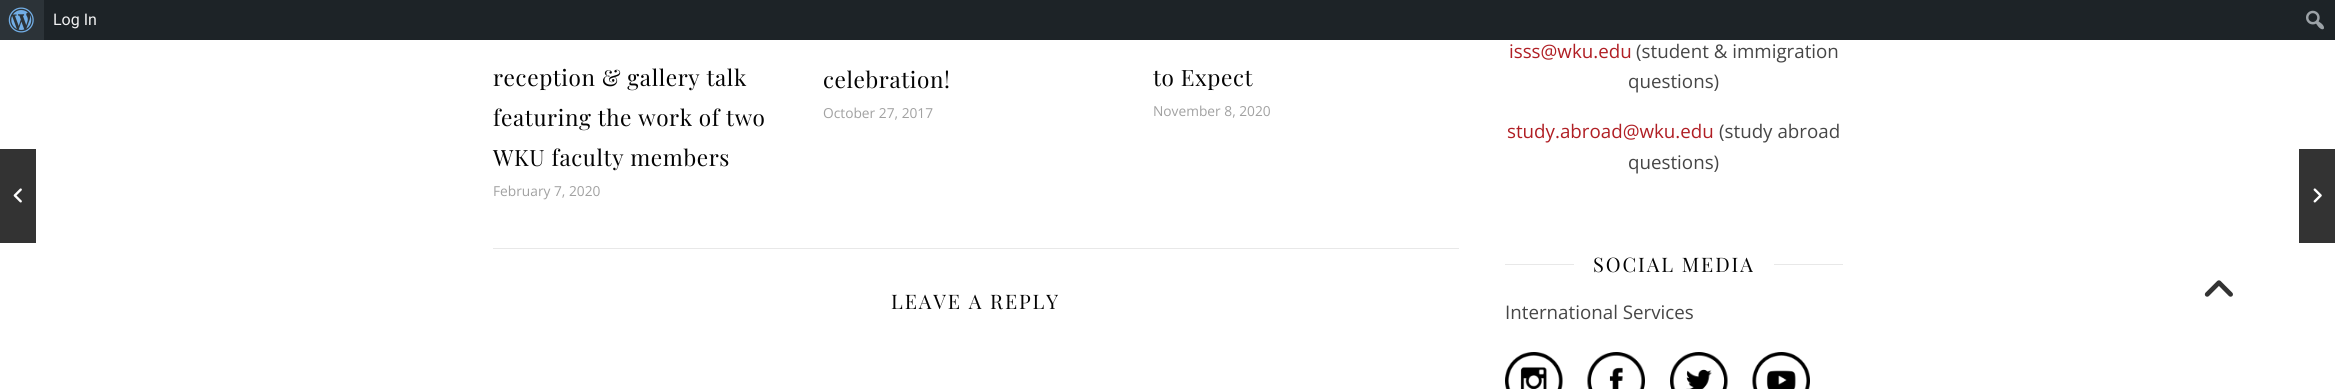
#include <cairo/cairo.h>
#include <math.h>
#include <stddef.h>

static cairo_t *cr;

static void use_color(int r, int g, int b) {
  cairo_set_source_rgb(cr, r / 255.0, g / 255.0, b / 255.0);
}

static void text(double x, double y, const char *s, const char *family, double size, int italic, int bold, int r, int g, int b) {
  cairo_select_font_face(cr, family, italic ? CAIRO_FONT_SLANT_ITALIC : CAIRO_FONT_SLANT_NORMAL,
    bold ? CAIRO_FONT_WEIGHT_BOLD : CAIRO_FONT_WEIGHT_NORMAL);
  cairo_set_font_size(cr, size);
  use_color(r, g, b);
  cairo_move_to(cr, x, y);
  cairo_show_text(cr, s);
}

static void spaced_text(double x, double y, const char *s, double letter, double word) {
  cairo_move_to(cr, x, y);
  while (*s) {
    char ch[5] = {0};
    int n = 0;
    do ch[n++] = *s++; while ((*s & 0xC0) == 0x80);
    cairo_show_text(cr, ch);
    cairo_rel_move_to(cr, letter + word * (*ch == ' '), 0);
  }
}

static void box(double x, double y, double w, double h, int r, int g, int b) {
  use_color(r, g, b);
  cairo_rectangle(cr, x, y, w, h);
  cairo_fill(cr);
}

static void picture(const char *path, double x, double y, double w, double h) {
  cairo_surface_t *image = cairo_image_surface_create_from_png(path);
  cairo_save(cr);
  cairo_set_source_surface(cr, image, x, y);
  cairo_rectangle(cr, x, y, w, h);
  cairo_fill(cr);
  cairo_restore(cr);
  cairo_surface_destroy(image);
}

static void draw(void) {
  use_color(255, 255, 255);
  cairo_paint(cr);
  box(44, 0, 2291, 40, 29, 35, 39);
  box(0, 0, 44, 40, 44, 51, 56);
  picture("img_01.png", 8, 7, 26, 26);
  picture("img_02.png", 2306, 10, 18, 20);
  box(0, 149, 36, 94, 51, 51, 51);
  picture("img_03.png", 13, 188, 9, 15);
  box(493, 248, 966, 1, 232, 232, 232);
  box(2299, 149, 36, 94, 51, 51, 51);
  picture("img_04.png", 2313, 188, 9, 15);
  box(1505, 264, 69, 1, 232, 232, 232);
  box(1774, 264, 69, 1, 232, 232, 232);
  picture("img_05.png", 1505, 352, 58, 37);
  picture("img_06.png", 1587, 352, 58, 37);
  picture("img_07.png", 1670, 352, 58, 37);
  picture("img_08.png", 1752, 352, 58, 37);
  picture("img_09.png", 2204, 280, 29, 17);
  text(53, 25, "Log In", "Roboto", 16, 0, 0, 240, 240, 241);
  cairo_select_font_face(cr, "Playfair Display", CAIRO_FONT_SLANT_NORMAL, CAIRO_FONT_WEIGHT_NORMAL);
  cairo_set_font_size(cr, 22.5);
  use_color(3, 3, 3);
  spaced_text(493, 86, "reception & gallery talk", 0.6, 0);
  spaced_text(493, 126, "featuring the work of two", 0.6, 0);
  spaced_text(493, 166, "WKU faculty members", 0.6, 0);
  text(493, 196, "February 7, 2020", "Open Sans", 13.75, 0, 0, 161, 161, 161);
  cairo_select_font_face(cr, "Playfair Display", CAIRO_FONT_SLANT_NORMAL, CAIRO_FONT_WEIGHT_NORMAL);
  cairo_set_font_size(cr, 22.5);
  use_color(3, 3, 3);
  spaced_text(823, 88, "celebration!", 0.6, 0);
  text(823, 118, "October 27, 2017", "Open Sans", 13.75, 0, 0, 161, 161, 161);
  cairo_select_font_face(cr, "Playfair Display", CAIRO_FONT_SLANT_NORMAL, CAIRO_FONT_WEIGHT_NORMAL);
  cairo_set_font_size(cr, 22.5);
  use_color(3, 3, 3);
  spaced_text(1153, 86, "to Expect", 0.6, 0);
  text(1153, 116, "November 8, 2020", "Open Sans", 13.75, 0, 0, 161, 161, 161);
  cairo_select_font_face(cr, "Playfair Display", CAIRO_FONT_SLANT_NORMAL, CAIRO_FONT_WEIGHT_NORMAL);
  cairo_set_font_size(cr, 20);
  use_color(3, 3, 3);
  spaced_text(891, 309, "LEAVE A REPLY", 1.9, 0);
  text(1509, 58, "isss@wku.edu", "Open Sans", 18.75, 0, 0, 176, 30, 36);
  text(1636, 58, "(student & immigration", "Open Sans", 18.75, 0, 0, 70, 70, 70);
  text(1628, 88, "questions)", "Open Sans", 18.75, 0, 0, 70, 70, 70);
  text(1507, 138, "study.abroad@wku.edu", "Open Sans", 18.75, 0, 0, 176, 30, 36);
  text(1719, 138, "(study abroad", "Open Sans", 18.75, 0, 0, 70, 70, 70);
  text(1628, 169, "questions)", "Open Sans", 18.75, 0, 0, 70, 70, 70);
  cairo_select_font_face(cr, "Playfair Display", CAIRO_FONT_SLANT_NORMAL, CAIRO_FONT_WEIGHT_NORMAL);
  cairo_set_font_size(cr, 20);
  use_color(3, 3, 3);
  spaced_text(1593, 272, "SOCIAL MEDIA", 1.9, 0);
  text(1505, 319, "International Services", "Open Sans", 18.75, 0, 0, 70, 70, 70);
}

int main(void) {
  cairo_surface_t *surface = cairo_image_surface_create(CAIRO_FORMAT_RGB24, 2335, 389);
  cr = cairo_create(surface);
  cairo_font_options_t *options = cairo_font_options_create();
  cairo_font_options_set_hint_metrics(options, CAIRO_HINT_METRICS_OFF);
  cairo_font_options_set_hint_style(options, CAIRO_HINT_STYLE_NONE);
  cairo_set_font_options(cr, options);
  cairo_set_miter_limit(cr, 4);
  draw();
  cairo_surface_write_to_png(surface, "out.png");
  cairo_font_options_destroy(options);
  cairo_destroy(cr);
  cairo_surface_destroy(surface);
  return 0;
}
